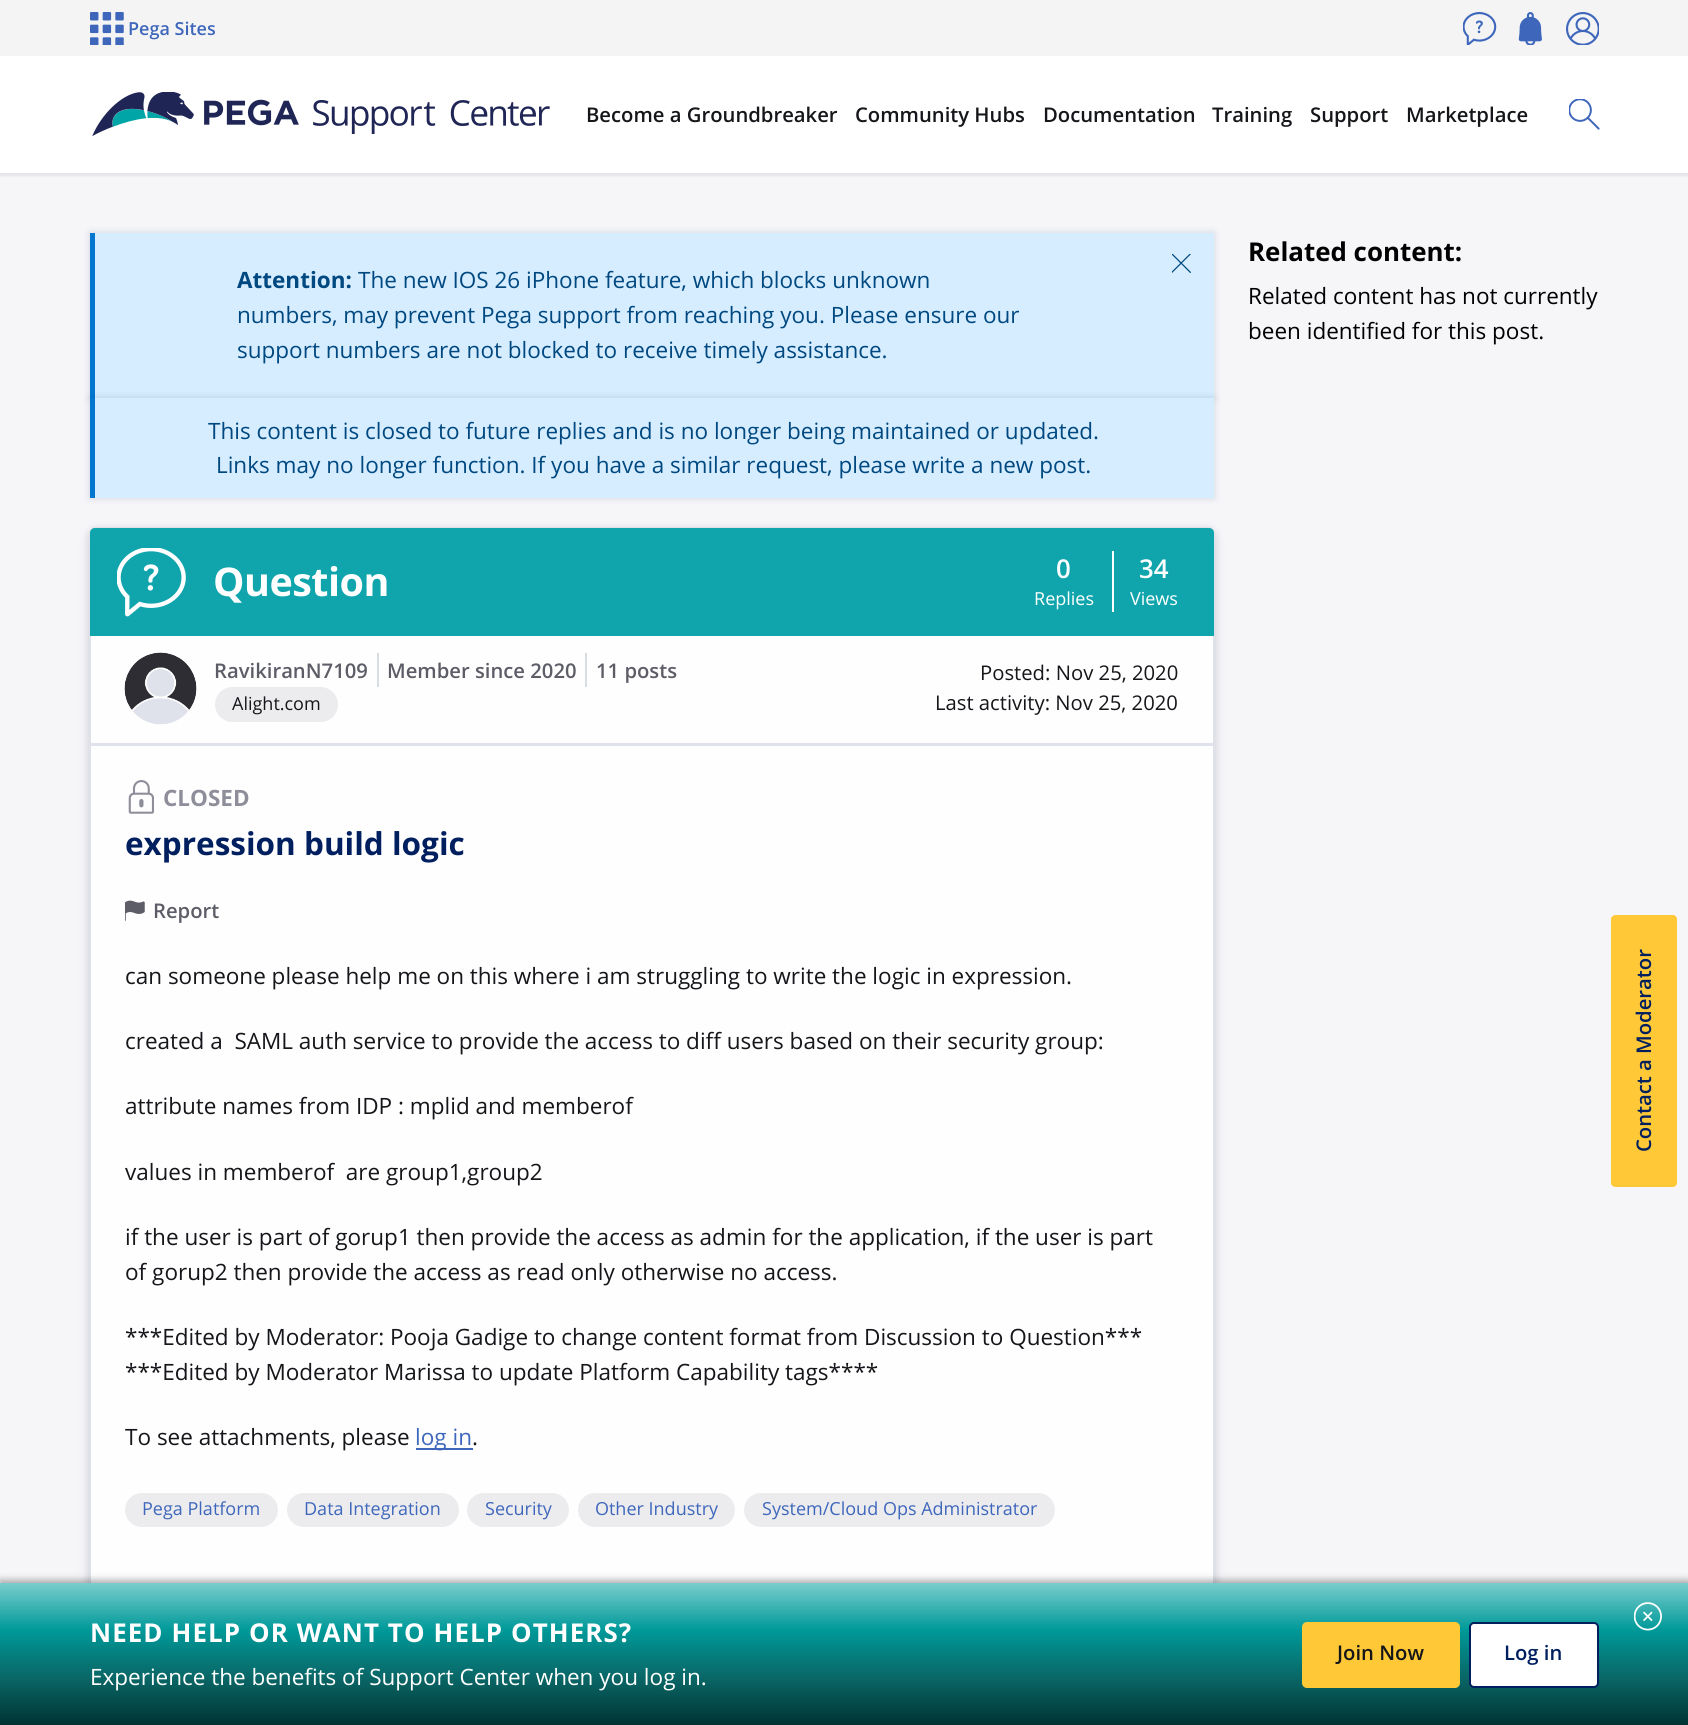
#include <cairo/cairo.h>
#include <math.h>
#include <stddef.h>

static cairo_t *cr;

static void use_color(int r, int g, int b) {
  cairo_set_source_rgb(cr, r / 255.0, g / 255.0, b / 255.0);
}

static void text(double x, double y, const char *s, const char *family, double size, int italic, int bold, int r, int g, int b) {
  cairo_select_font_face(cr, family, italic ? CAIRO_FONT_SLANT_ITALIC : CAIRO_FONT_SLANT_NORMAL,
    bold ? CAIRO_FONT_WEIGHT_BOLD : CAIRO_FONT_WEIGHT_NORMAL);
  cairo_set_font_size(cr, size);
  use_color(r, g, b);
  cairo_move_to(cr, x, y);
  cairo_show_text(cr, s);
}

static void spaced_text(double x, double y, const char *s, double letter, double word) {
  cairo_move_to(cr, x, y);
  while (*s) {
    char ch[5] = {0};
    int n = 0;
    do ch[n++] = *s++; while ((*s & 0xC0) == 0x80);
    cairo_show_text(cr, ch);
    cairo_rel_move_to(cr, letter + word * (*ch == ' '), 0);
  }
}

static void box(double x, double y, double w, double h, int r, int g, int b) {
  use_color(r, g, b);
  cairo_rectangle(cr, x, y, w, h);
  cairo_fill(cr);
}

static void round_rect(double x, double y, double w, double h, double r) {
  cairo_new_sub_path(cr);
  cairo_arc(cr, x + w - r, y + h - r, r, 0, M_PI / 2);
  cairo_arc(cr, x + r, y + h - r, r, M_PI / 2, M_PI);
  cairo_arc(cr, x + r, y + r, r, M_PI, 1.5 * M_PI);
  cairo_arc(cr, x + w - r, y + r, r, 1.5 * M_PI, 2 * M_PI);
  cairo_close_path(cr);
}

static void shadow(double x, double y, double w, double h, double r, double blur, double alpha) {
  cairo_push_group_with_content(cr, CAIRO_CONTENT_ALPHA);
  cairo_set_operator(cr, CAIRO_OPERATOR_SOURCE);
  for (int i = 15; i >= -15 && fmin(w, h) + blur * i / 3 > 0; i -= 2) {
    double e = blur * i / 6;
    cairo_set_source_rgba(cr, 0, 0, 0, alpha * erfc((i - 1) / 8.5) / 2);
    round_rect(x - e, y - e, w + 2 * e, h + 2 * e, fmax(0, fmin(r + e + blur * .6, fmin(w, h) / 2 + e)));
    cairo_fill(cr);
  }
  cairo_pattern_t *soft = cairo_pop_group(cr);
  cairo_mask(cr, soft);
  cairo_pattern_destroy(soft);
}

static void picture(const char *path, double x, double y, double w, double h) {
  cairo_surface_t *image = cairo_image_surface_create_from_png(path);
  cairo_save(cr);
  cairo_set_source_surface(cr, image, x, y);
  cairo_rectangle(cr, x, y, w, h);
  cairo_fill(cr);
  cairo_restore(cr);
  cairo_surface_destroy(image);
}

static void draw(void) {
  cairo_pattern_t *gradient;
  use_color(246, 246, 249);
  cairo_paint(cr);
  use_color(6, 10, 36);
  shadow(-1, 0, 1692, 176, 0, 1.5, 0.08);
  box(0, 56, 1688, 117, 255, 255, 255);
  box(0, 0, 1688, 56, 244, 244, 245);
  picture("img_01.png", 90, 12, 34, 33);
  picture("img_02.png", 1463, 12, 34, 33);
  picture("img_03.png", 1518, 12, 24, 33);
  picture("img_04.png", 1566, 12, 33, 33);
  picture("img_05.png", 1569, 99, 31, 31);
  picture("img_06.png", 92, 92, 458, 44);
  use_color(8, 28, 69);
  shadow(90, 233, 1124, 165, 0, 4, 0.15);
  box(95, 233, 1119, 165, 214, 237, 255);
  box(90, 233, 5, 165, 0, 118, 209);
  picture("img_07.png", 1172, 254, 19, 19);
  use_color(8, 28, 69);
  shadow(90, 398, 1124, 100, 0, 4, 0.15);
  box(95, 398, 1119, 100, 214, 237, 255);
  box(90, 398, 5, 100, 0, 118, 209);
  use_color(42, 45, 68);
  shadow(89, 534, 1126, 1157, 8, 7.5, 0.08);
  shadow(87, 527, 1130, 1159, 9, 3, 0.1);
  use_color(254, 254, 255);
  round_rect(89, 527, 1126, 1156, 8);
  cairo_fill(cr);
  round_rect(90, 528, 1124, 1154, 7);
  cairo_set_source_rgba(cr, 0.173, 0.239, 0.376, 0.15);
  cairo_stroke(cr);
  box(90, 743, 1124, 3, 224, 226, 235);
  use_color(16, 165, 172);
  cairo_new_path(cr);
  cairo_move_to(cr, 95, 528);
  cairo_line_to(cr, 1209, 528);
  cairo_curve_to(cr, 1212, 528, 1214, 530, 1214, 533);
  cairo_line_to(cr, 1214, 636);
  cairo_line_to(cr, 90, 636);
  cairo_line_to(cr, 90, 533);
  cairo_curve_to(cr, 90, 530, 92, 528, 95, 528);
  cairo_close_path(cr);
  cairo_fill(cr);
  picture("img_08.png", 117, 548, 69, 69);
  box(1112, 551, 2, 61, 255, 255, 255);
  picture("img_09.png", 124, 652, 73, 73);
  box(377, 653, 2, 34, 217, 220, 227);
  box(585, 653, 2, 34, 217, 220, 227);
  use_color(236, 236, 239);
  round_rect(215, 687, 123, 35, 17.5);
  cairo_fill(cr);
  picture("img_10.png", 128, 780, 26, 34);
  picture("img_11.png", 125, 900, 20, 21);
  box(416, 1448, 57, 2, 62, 103, 187);
  use_color(236, 236, 239);
  round_rect(125, 1493, 153, 34, 17);
  cairo_fill(cr);
  round_rect(287, 1493, 172, 34, 17);
  cairo_fill(cr);
  round_rect(467, 1493, 102, 34, 17);
  cairo_fill(cr);
  round_rect(578, 1493, 157, 34, 17);
  cairo_fill(cr);
  round_rect(744, 1493, 311, 34, 17);
  cairo_fill(cr);
  use_color(255, 200, 54);
  cairo_new_path(cr);
  cairo_move_to(cr, 1611, 1183);
  cairo_line_to(cr, 1611, 919);
  cairo_curve_to(cr, 1611, 917, 1613, 915, 1616, 915);
  cairo_line_to(cr, 1673, 915);
  cairo_curve_to(cr, 1675, 915, 1677, 917, 1677, 919);
  cairo_line_to(cr, 1677, 1183);
  cairo_curve_to(cr, 1677, 1185, 1675, 1187, 1673, 1187);
  cairo_line_to(cr, 1616, 1187);
  cairo_curve_to(cr, 1613, 1187, 1611, 1185, 1611, 1183);
  cairo_close_path(cr);
  cairo_fill(cr);
  use_color(21, 22, 25);
  shadow(0, 1580, 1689, 142, 0, 3.5, 0.35);
  gradient = cairo_pattern_create_linear(845, 1583, 845, 1725);
  cairo_pattern_add_color_stop_rgba(gradient, 0, 0.478, 0.804, 0.804, 1);
  cairo_pattern_add_color_stop_rgba(gradient, 0.33, 0, 0.6, 0.6, 1);
  cairo_pattern_add_color_stop_rgba(gradient, 0.67, 0.039, 0.4, 0.4, 1);
  cairo_pattern_add_color_stop_rgba(gradient, 1, 0, 0.2, 0.2, 1);
  cairo_set_source(cr, gradient);
  cairo_pattern_destroy(gradient);
  cairo_rectangle(cr, 0, 1583, 1688, 142);
  cairo_fill(cr);
  picture("img_12.png", 1634, 1602, 28, 29);
  use_color(255, 200, 54);
  round_rect(1302, 1622, 158, 66, 5);
  cairo_fill(cr);
  use_color(255, 255, 255);
  round_rect(1470, 1623, 128, 64, 4);
  cairo_fill_preserve(cr);
  use_color(0, 31, 95);
  cairo_stroke(cr);
  text(128, 35, "Pega Sites", "Open Sans SemiBold", 18, 0, 0, 62, 103, 187);
  text(586, 122, "Become a Groundbreaker", "Open Sans SemiBold", 20.25, 0, 0, 21, 22, 25);
  text(855, 122, "Community Hubs", "Open Sans SemiBold", 20.25, 0, 0, 21, 22, 25);
  text(1043, 122, "Documentation", "Open Sans SemiBold", 20.25, 0, 0, 21, 22, 25);
  text(1212, 122, "Training", "Open Sans SemiBold", 20.25, 0, 0, 21, 22, 25);
  text(1310, 122, "Support", "Open Sans SemiBold", 20.25, 0, 0, 21, 22, 25);
  text(1406, 122, "Marketplace", "Open Sans SemiBold", 20.25, 0, 0, 21, 22, 25);
  text(237, 288, "Attention:", "Open Sans", 22.5, 0, 1, 0, 72, 128);
  text(358, 288, "The new IOS 26 iPhone feature, which blocks unknown", "Open Sans", 22.5, 0, 0, 0, 72, 128);
  text(237, 323, "numbers, may prevent Pega support from reaching you. Please ensure our", "Open Sans", 22.5, 0, 0, 0, 72, 128);
  text(237, 358, "support numbers are not blocked to receive timely assistance.", "Open Sans", 22.5, 0, 0, 0, 72, 128);
  text(208, 439, "This content is closed to future replies and is no longer being maintained or updated.", "Open Sans", 22.5, 0, 0, 0, 72, 128);
  text(216, 473, "Links may no longer function. If you have a similar request, please write a new post.", "Open Sans", 22.5, 0, 0, 0, 72, 128);
  cairo_select_font_face(cr, "Open Sans", CAIRO_FONT_SLANT_NORMAL, CAIRO_FONT_WEIGHT_BOLD);
  cairo_set_font_size(cr, 39.5);
  use_color(255, 255, 255);
  spaced_text(213, 596, "Question", -0.5, 0);
  text(1056, 578, "0", "Open Sans SemiBold", 25.9, 0, 0, 255, 255, 255);
  text(1034, 605, "Replies", "Open Sans", 18, 0, 0, 255, 255, 255);
  text(1139, 578, "34", "Open Sans SemiBold", 25.9, 0, 0, 255, 255, 255);
  text(1130, 605, "Views", "Open Sans", 18, 0, 0, 255, 255, 255);
  text(214, 678, "RavikiranN7109", "Open Sans SemiBold", 20.25, 0, 0, 92, 93, 102);
  text(387, 678, "Member since 2020", "Open Sans SemiBold", 20.25, 0, 0, 92, 93, 102);
  text(596, 678, "11 posts", "Open Sans SemiBold", 20.25, 0, 0, 92, 93, 102);
  text(232, 710, "Alight.com", "Open Sans", 18, 0, 0, 21, 22, 25);
  text(980, 680, "Posted: Nov 25, 2020", "Open Sans", 20.25, 0, 0, 21, 22, 25);
  text(935, 710, "Last activity: Nov 25, 2020", "Open Sans", 20.25, 0, 0, 21, 22, 25);
  text(163, 806, "CLOSED", "Open Sans", 22.5, 0, 1, 141, 142, 153);
  text(125, 855, "expression build logic", "Open Sans", 31.5, 0, 1, 0, 31, 95);
  text(153, 918, "Report", "Open Sans SemiBold", 20.25, 0, 0, 92, 93, 102);
  text(125, 984, "can someone please help me on this where i am struggling to write the logic in expression.", "Open Sans", 22.5, 0, 0, 21, 22, 25);
  text(125, 1049, "created a  SAML auth service to provide the access to diff users based on their security group:", "Open Sans", 22.5, 0, 0, 21, 22, 25);
  text(125, 1114, "attribute names from IDP : mplid and memberof", "Open Sans", 22.5, 0, 0, 21, 22, 25);
  text(125, 1180, "values in memberof  are group1,group2", "Open Sans", 22.5, 0, 0, 21, 22, 25);
  text(125, 1245, "if the user is part of gorup1 then provide the access as admin for the application, if the user is part", "Open Sans", 22.5, 0, 0, 21, 22, 25);
  text(125, 1280, "of gorup2 then provide the access as read only otherwise no access.", "Open Sans", 22.5, 0, 0, 21, 22, 25);
  text(125, 1345, "***Edited by Moderator: Pooja Gadige to change content format from Discussion to Question***", "Open Sans", 22.5, 0, 0, 21, 22, 25);
  text(125, 1380, "***Edited by Moderator Marissa to update Platform Capability tags****", "Open Sans", 22.5, 0, 0, 21, 22, 25);
  text(125, 1445, "To see attachments, please", "Open Sans", 22.5, 0, 0, 21, 22, 25);
  text(415, 1445, "log in", "Open Sans", 22.5, 0, 0, 62, 103, 187);
  text(472, 1445, ".", "Open Sans", 22.5, 0, 0, 21, 22, 25);
  text(142, 1515, "Pega Platform", "Open Sans", 18, 0, 0, 62, 103, 187);
  text(304, 1515, "Data Integration", "Open Sans", 18, 0, 0, 62, 103, 187);
  text(485, 1515, "Security", "Open Sans", 18, 0, 0, 62, 103, 187);
  text(595, 1515, "Other Industry", "Open Sans", 18, 0, 0, 62, 103, 187);
  text(762, 1515, "System/Cloud Ops Administrator", "Open Sans", 18, 0, 0, 62, 103, 187);
  text(1248, 261, "Related content:", "Open Sans", 25.9, 0, 1, 0, 0, 0);
  text(1248, 304, "Related content has not currently", "Open Sans", 22.5, 0, 0, 0, 0, 0);
  text(1248, 339, "been identified for this post.", "Open Sans", 22.5, 0, 0, 0, 0, 0);
  cairo_save(cr);
  cairo_translate(cr, 1651, 1152);
  cairo_rotate(cr, -90 * M_PI / 180);
  text(0, 0, "Contact a Moderator", "Open Sans SemiBold", 20.25, 0, 0, 0, 31, 95);
  cairo_restore(cr);
  cairo_select_font_face(cr, "Open Sans", CAIRO_FONT_SLANT_NORMAL, CAIRO_FONT_WEIGHT_BOLD);
  cairo_set_font_size(cr, 25.9);
  use_color(255, 255, 255);
  spaced_text(90, 1642, "NEED HELP OR WANT TO HELP OTHERS?", 1.1, 0);
  text(90, 1685, "Experience the benefits of Support Center when you log in.", "Open Sans", 22.5, 0, 0, 255, 255, 255);
  text(1337, 1660, "Join Now", "Open Sans SemiBold", 20.25, 0, 0, 21, 22, 25);
  text(1504, 1660, "Log in", "Open Sans SemiBold", 20.25, 0, 0, 0, 31, 95);
}

int main(void) {
  cairo_surface_t *surface = cairo_image_surface_create(CAIRO_FORMAT_RGB24, 1688, 1725);
  cr = cairo_create(surface);
  cairo_font_options_t *options = cairo_font_options_create();
  cairo_font_options_set_hint_metrics(options, CAIRO_HINT_METRICS_OFF);
  cairo_font_options_set_hint_style(options, CAIRO_HINT_STYLE_NONE);
  cairo_set_font_options(cr, options);
  cairo_set_miter_limit(cr, 4);
  draw();
  cairo_surface_write_to_png(surface, "out.png");
  cairo_font_options_destroy(options);
  cairo_destroy(cr);
  cairo_surface_destroy(surface);
  return 0;
}
